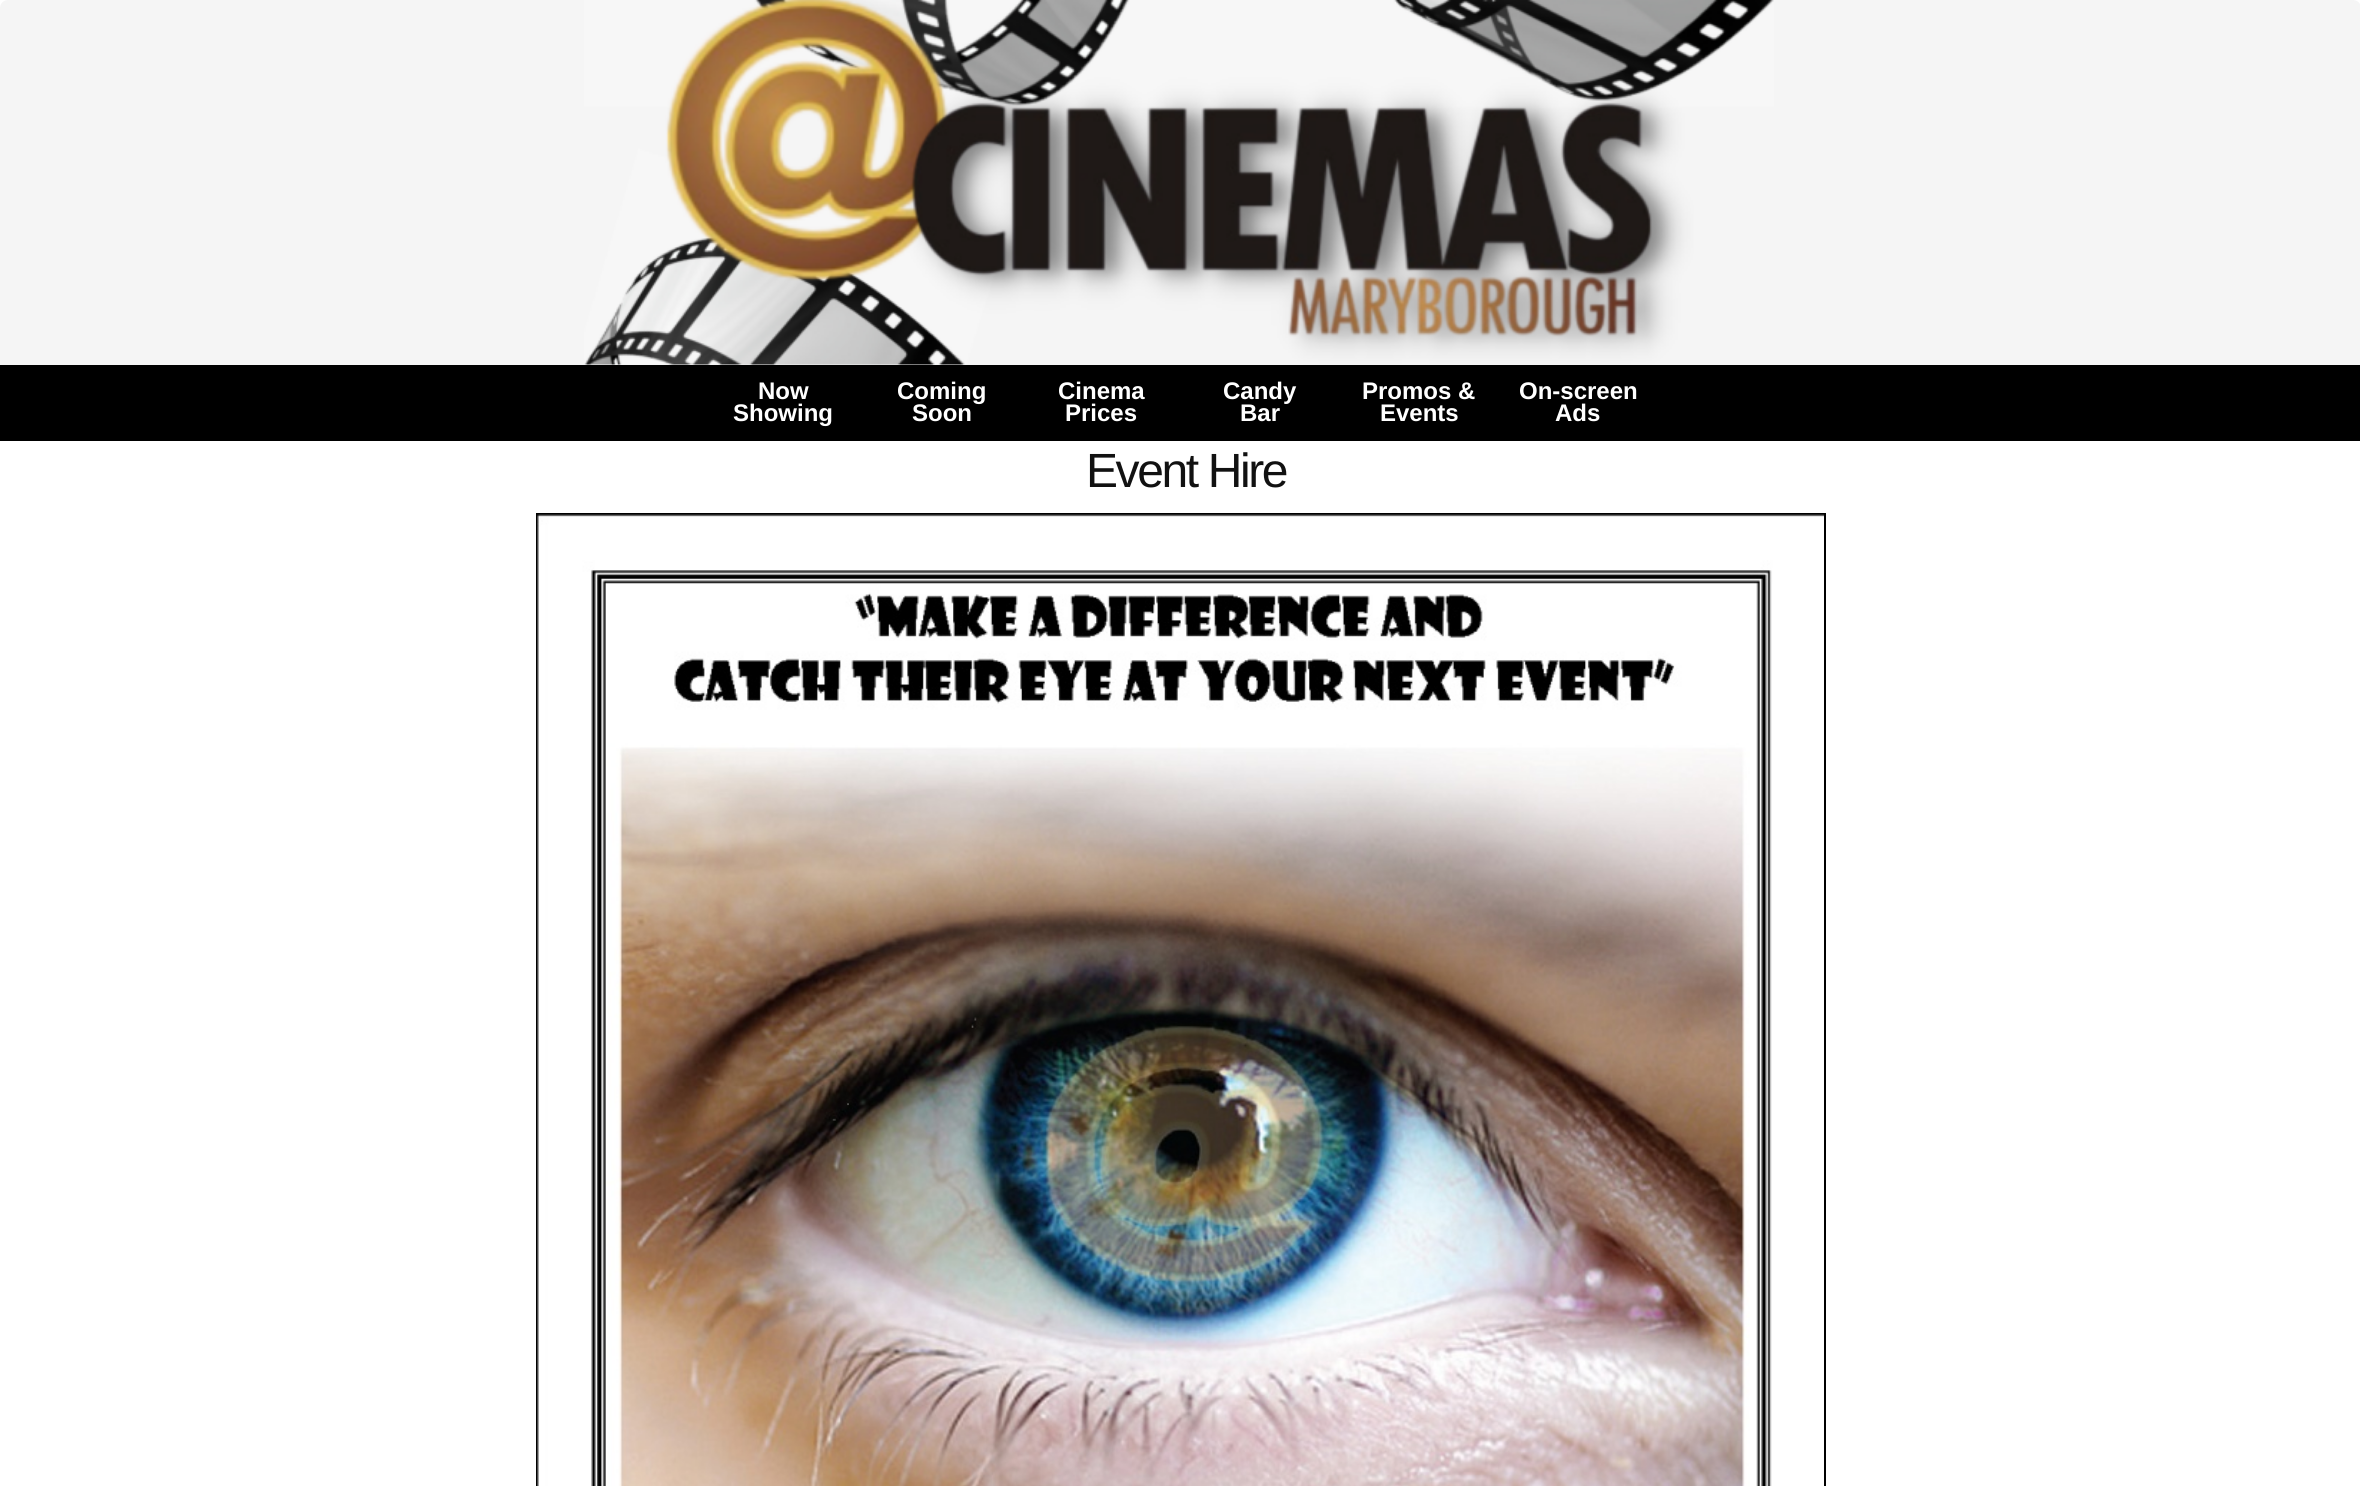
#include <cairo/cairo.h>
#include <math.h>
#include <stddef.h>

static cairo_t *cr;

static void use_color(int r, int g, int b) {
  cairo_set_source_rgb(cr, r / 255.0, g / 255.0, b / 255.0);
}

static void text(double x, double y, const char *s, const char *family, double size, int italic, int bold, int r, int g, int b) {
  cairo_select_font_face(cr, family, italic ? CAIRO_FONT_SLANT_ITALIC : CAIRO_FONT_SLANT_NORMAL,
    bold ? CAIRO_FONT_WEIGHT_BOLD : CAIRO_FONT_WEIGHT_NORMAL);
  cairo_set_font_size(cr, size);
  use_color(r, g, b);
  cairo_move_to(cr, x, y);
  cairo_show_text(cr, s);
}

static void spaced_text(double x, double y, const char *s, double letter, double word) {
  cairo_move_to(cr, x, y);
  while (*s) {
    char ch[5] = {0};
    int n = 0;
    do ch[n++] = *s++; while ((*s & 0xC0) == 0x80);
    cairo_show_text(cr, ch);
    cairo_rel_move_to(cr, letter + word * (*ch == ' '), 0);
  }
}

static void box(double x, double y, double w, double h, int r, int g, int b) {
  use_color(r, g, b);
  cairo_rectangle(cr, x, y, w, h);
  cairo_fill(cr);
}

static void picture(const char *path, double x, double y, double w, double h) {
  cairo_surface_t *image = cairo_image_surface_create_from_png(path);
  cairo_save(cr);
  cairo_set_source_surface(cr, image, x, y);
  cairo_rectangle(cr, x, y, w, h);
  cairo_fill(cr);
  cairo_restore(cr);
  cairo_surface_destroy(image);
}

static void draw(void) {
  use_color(255, 255, 255);
  cairo_paint(cr);
  use_color(245, 245, 245);
  cairo_new_path(cr);
  cairo_move_to(cr, 8, 0);
  cairo_line_to(cr, 2353, 0);
  cairo_curve_to(cr, 2357.5, 0, 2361, 3.5, 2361, 8);
  cairo_line_to(cr, 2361, 365);
  cairo_line_to(cr, 0, 365);
  cairo_line_to(cr, 0, 8);
  cairo_curve_to(cr, 0, 3.5, 3.5, 0, 8, 0);
  cairo_close_path(cr);
  cairo_fill(cr);
  picture("img_01.png", 584, 0, 1190, 365);
  box(0, 365, 2360, 76, 0, 0, 0);
  cairo_rectangle(cr, 537, 514, 1288, 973);
  cairo_stroke(cr);
  picture("img_02.png", 537, 514, 1287, 972);
  text(758, 399, "Now", "Liberation Sans", 24, 0, 1, 255, 255, 255);
  text(733, 421, "Showing", "Liberation Sans", 24, 0, 1, 255, 255, 255);
  text(897, 399, "Coming", "Liberation Sans", 24, 0, 1, 255, 255, 255);
  text(912, 421, "Soon", "Liberation Sans", 24, 0, 1, 255, 255, 255);
  text(1058, 399, "Cinema", "Liberation Sans", 24, 0, 1, 255, 255, 255);
  text(1065, 421, "Prices", "Liberation Sans", 24, 0, 1, 255, 255, 255);
  text(1223, 399, "Candy", "Liberation Sans", 24, 0, 1, 255, 255, 255);
  text(1240, 421, "Bar", "Liberation Sans", 24, 0, 1, 255, 255, 255);
  text(1362, 399, "Promos &", "Liberation Sans", 24, 0, 1, 255, 255, 255);
  text(1380, 421, "Events", "Liberation Sans", 24, 0, 1, 255, 255, 255);
  text(1519, 399, "On-screen", "Liberation Sans", 24, 0, 1, 255, 255, 255);
  text(1555, 421, "Ads", "Liberation Sans", 24, 0, 1, 255, 255, 255);
  cairo_select_font_face(cr, "Liberation Sans", CAIRO_FONT_SLANT_NORMAL, CAIRO_FONT_WEIGHT_NORMAL);
  cairo_set_font_size(cr, 48);
  use_color(17, 17, 17);
  spaced_text(1086, 487, "Event Hire", -2.4, 0);
}

int main(void) {
  cairo_surface_t *surface = cairo_image_surface_create(CAIRO_FORMAT_RGB24, 2360, 1486);
  cr = cairo_create(surface);
  cairo_font_options_t *options = cairo_font_options_create();
  cairo_font_options_set_hint_metrics(options, CAIRO_HINT_METRICS_OFF);
  cairo_font_options_set_hint_style(options, CAIRO_HINT_STYLE_NONE);
  cairo_set_font_options(cr, options);
  cairo_set_miter_limit(cr, 4);
  draw();
  cairo_surface_write_to_png(surface, "out.png");
  cairo_font_options_destroy(options);
  cairo_destroy(cr);
  cairo_surface_destroy(surface);
  return 0;
}
